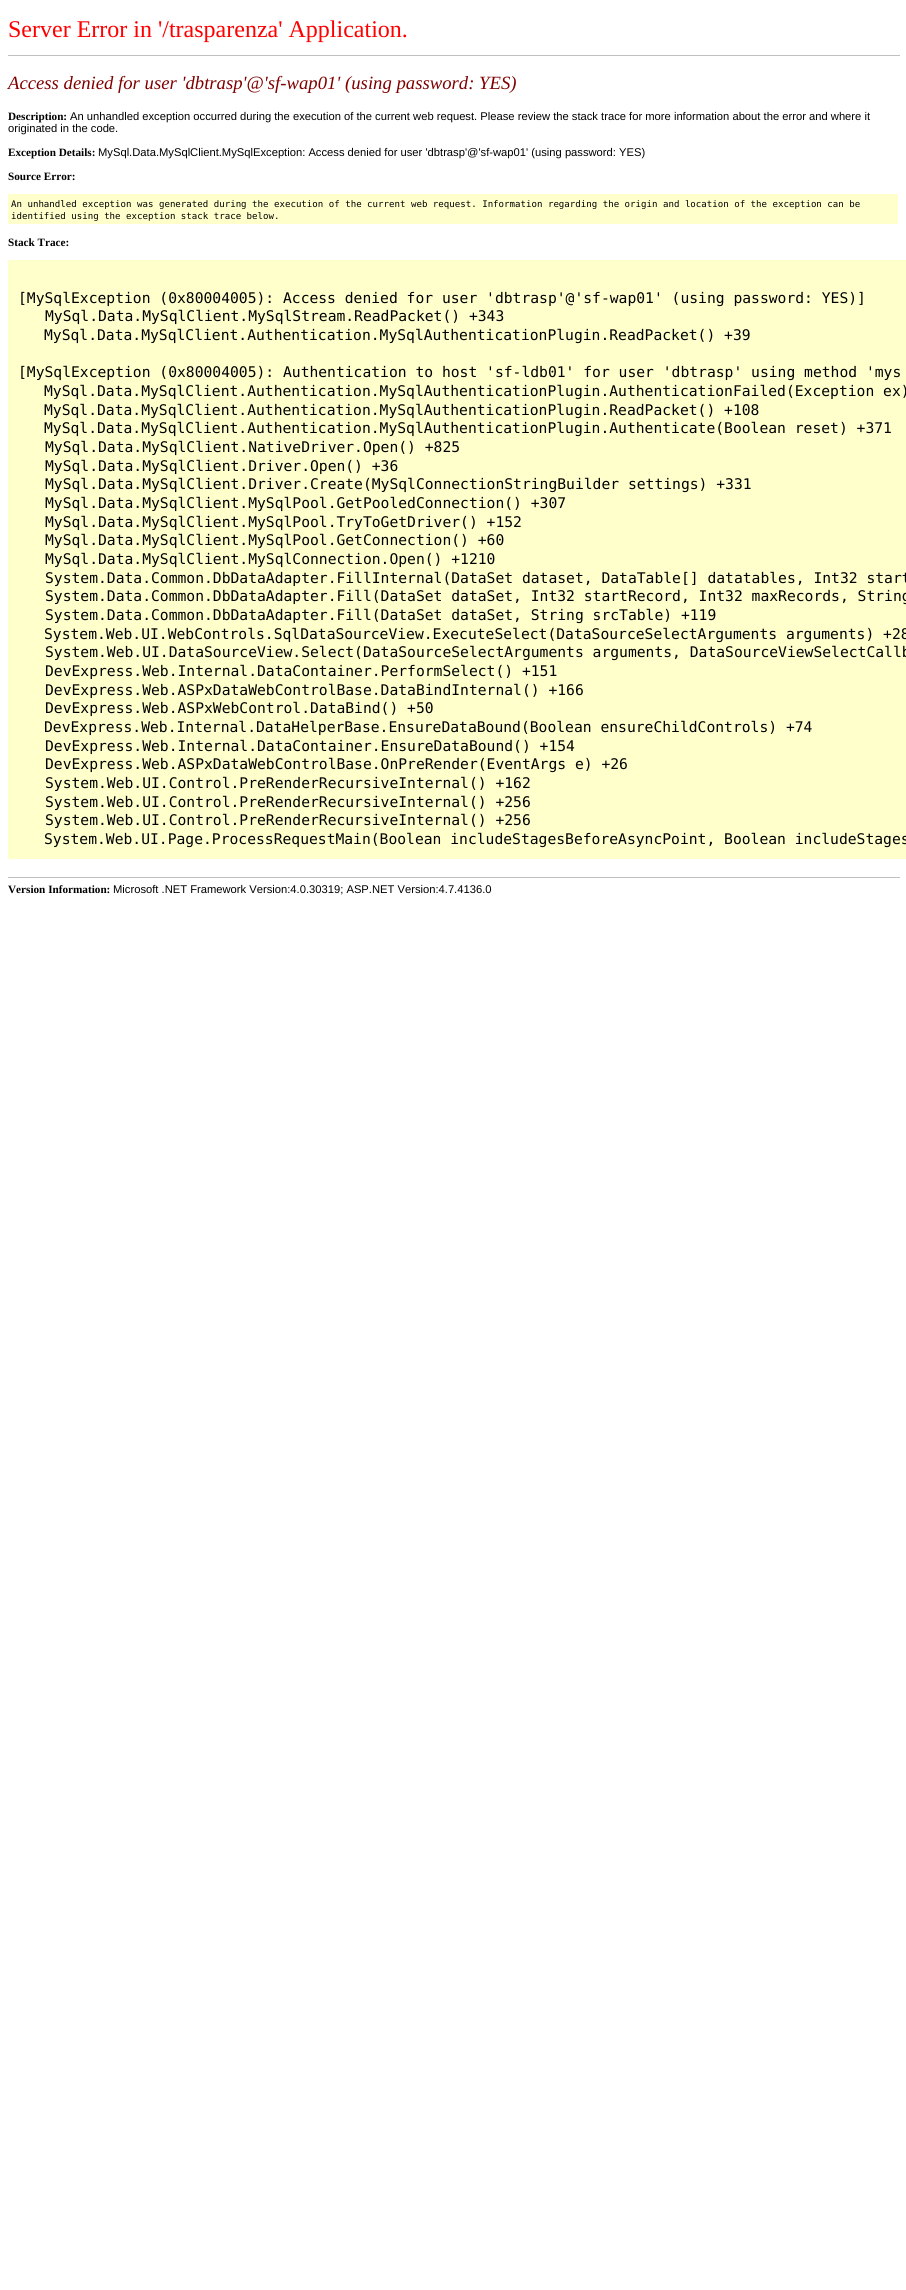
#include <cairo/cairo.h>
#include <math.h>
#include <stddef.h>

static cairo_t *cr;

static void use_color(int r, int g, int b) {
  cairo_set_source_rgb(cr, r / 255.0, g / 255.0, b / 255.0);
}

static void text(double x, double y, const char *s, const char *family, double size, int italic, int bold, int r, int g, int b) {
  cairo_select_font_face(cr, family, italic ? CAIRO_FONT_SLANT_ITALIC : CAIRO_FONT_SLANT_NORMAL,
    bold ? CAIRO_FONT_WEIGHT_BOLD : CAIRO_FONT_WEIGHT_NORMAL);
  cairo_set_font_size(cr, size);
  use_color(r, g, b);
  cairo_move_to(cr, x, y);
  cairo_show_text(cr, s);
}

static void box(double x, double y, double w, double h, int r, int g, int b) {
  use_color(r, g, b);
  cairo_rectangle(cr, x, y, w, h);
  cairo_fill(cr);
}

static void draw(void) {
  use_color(255, 255, 255);
  cairo_paint(cr);
  box(8, 55, 892, 1, 192, 192, 192);
  box(8, 194, 890, 30, 255, 255, 204);
  box(8, 260, 898, 599, 255, 255, 204);
  box(8, 877, 892, 1, 192, 192, 192);
  text(8, 37, "Server Error in '/trasparenza' Application.", "Liberation Serif", 24, 0, 0, 255, 0, 0);
  text(8, 89, "Access denied for user 'dbtrasp'@'sf-wap01' (using password: YES)", "Liberation Serif", 18.7, 1, 0, 128, 0, 0);
  text(8, 120, "Description:", "Liberation Serif", 11.2, 0, 1, 0, 0, 0);
  text(70, 120, "An unhandled exception occurred during the execution of the current web request. Please review the stack trace for more information about the error and where it", "Liberation Sans", 11.2, 0, 0, 0, 0, 0);
  text(8, 132, "originated in the code.", "Liberation Sans", 11.2, 0, 0, 0, 0, 0);
  text(8, 156, "Exception Details:", "Liberation Serif", 11.2, 0, 1, 0, 0, 0);
  text(98, 156, "MySql.Data.MySqlClient.MySqlException: Access denied for user 'dbtrasp'@'sf-wap01' (using password: YES)", "Liberation Sans", 11.2, 0, 0, 0, 0, 0);
  text(8, 180, "Source Error:", "Liberation Serif", 11.2, 0, 1, 0, 0, 0);
  text(11, 207, "An unhandled exception was generated during the execution of the current web request. Information regarding the origin and location of the exception can be", "DejaVu Sans Mono", 9.1, 0, 0, 0, 0, 0);
  text(11, 219, "identified using the exception stack trace below.", "DejaVu Sans Mono", 9.1, 0, 0, 0, 0, 0);
  text(8, 246, "Stack Trace:", "Liberation Serif", 11.2, 0, 1, 0, 0, 0);
  text(18, 303, "[MySqlException (0x80004005): Access denied for user 'dbtrasp'@'sf-wap01' (using password: YES)]", "DejaVu Sans Mono", 14.67, 0, 0, 0, 0, 0);
  text(45, 321, "MySql.Data.MySqlClient.MySqlStream.ReadPacket() +343", "DejaVu Sans Mono", 14.67, 0, 0, 0, 0, 0);
  text(44, 340, "MySql.Data.MySqlClient.Authentication.MySqlAuthenticationPlugin.ReadPacket() +39", "DejaVu Sans Mono", 14.67, 0, 0, 0, 0, 0);
  text(18, 377, "[MySqlException (0x80004005): Authentication to host 'sf-ldb01' for user 'dbtrasp' using method 'mys", "DejaVu Sans Mono", 14.67, 0, 0, 0, 0, 0);
  text(44, 396, "MySql.Data.MySqlClient.Authentication.MySqlAuthenticationPlugin.AuthenticationFailed(Exception ex)", "DejaVu Sans Mono", 14.67, 0, 0, 0, 0, 0);
  text(44, 415, "MySql.Data.MySqlClient.Authentication.MySqlAuthenticationPlugin.ReadPacket() +108", "DejaVu Sans Mono", 14.67, 0, 0, 0, 0, 0);
  text(44, 433, "MySql.Data.MySqlClient.Authentication.MySqlAuthenticationPlugin.Authenticate(Boolean reset) +371", "DejaVu Sans Mono", 14.67, 0, 0, 0, 0, 0);
  text(45, 452, "MySql.Data.MySqlClient.NativeDriver.Open() +825", "DejaVu Sans Mono", 14.67, 0, 0, 0, 0, 0);
  text(45, 471, "MySql.Data.MySqlClient.Driver.Open() +36", "DejaVu Sans Mono", 14.67, 0, 0, 0, 0, 0);
  text(45, 489, "MySql.Data.MySqlClient.Driver.Create(MySqlConnectionStringBuilder settings) +331", "DejaVu Sans Mono", 14.67, 0, 0, 0, 0, 0);
  text(45, 508, "MySql.Data.MySqlClient.MySqlPool.GetPooledConnection() +307", "DejaVu Sans Mono", 14.67, 0, 0, 0, 0, 0);
  text(45, 527, "MySql.Data.MySqlClient.MySqlPool.TryToGetDriver() +152", "DejaVu Sans Mono", 14.67, 0, 0, 0, 0, 0);
  text(45, 545, "MySql.Data.MySqlClient.MySqlPool.GetConnection() +60", "DejaVu Sans Mono", 14.67, 0, 0, 0, 0, 0);
  text(45, 564, "MySql.Data.MySqlClient.MySqlConnection.Open() +1210", "DejaVu Sans Mono", 14.67, 0, 0, 0, 0, 0);
  text(45, 583, "System.Data.Common.DbDataAdapter.FillInternal(DataSet dataset, DataTable[] datatables, Int32 start", "DejaVu Sans Mono", 14.67, 0, 0, 0, 0, 0);
  text(45, 601, "System.Data.Common.DbDataAdapter.Fill(DataSet dataSet, Int32 startRecord, Int32 maxRecords, String", "DejaVu Sans Mono", 14.67, 0, 0, 0, 0, 0);
  text(45, 620, "System.Data.Common.DbDataAdapter.Fill(DataSet dataSet, String srcTable) +119", "DejaVu Sans Mono", 14.67, 0, 0, 0, 0, 0);
  text(44, 639, "System.Web.UI.WebControls.SqlDataSourceView.ExecuteSelect(DataSourceSelectArguments arguments) +28", "DejaVu Sans Mono", 14.67, 0, 0, 0, 0, 0);
  text(45, 657, "System.Web.UI.DataSourceView.Select(DataSourceSelectArguments arguments, DataSourceViewSelectCallb", "DejaVu Sans Mono", 14.67, 0, 0, 0, 0, 0);
  text(45, 676, "DevExpress.Web.Internal.DataContainer.PerformSelect() +151", "DejaVu Sans Mono", 14.67, 0, 0, 0, 0, 0);
  text(45, 695, "DevExpress.Web.ASPxDataWebControlBase.DataBindInternal() +166", "DejaVu Sans Mono", 14.67, 0, 0, 0, 0, 0);
  text(45, 713, "DevExpress.Web.ASPxWebControl.DataBind() +50", "DejaVu Sans Mono", 14.67, 0, 0, 0, 0, 0);
  text(44, 732, "DevExpress.Web.Internal.DataHelperBase.EnsureDataBound(Boolean ensureChildControls) +74", "DejaVu Sans Mono", 14.67, 0, 0, 0, 0, 0);
  text(45, 751, "DevExpress.Web.Internal.DataContainer.EnsureDataBound() +154", "DejaVu Sans Mono", 14.67, 0, 0, 0, 0, 0);
  text(45, 769, "DevExpress.Web.ASPxDataWebControlBase.OnPreRender(EventArgs e) +26", "DejaVu Sans Mono", 14.67, 0, 0, 0, 0, 0);
  text(45, 788, "System.Web.UI.Control.PreRenderRecursiveInternal() +162", "DejaVu Sans Mono", 14.67, 0, 0, 0, 0, 0);
  text(45, 807, "System.Web.UI.Control.PreRenderRecursiveInternal() +256", "DejaVu Sans Mono", 14.67, 0, 0, 0, 0, 0);
  text(45, 825, "System.Web.UI.Control.PreRenderRecursiveInternal() +256", "DejaVu Sans Mono", 14.67, 0, 0, 0, 0, 0);
  text(44, 844, "System.Web.UI.Page.ProcessRequestMain(Boolean includeStagesBeforeAsyncPoint, Boolean includeStages", "DejaVu Sans Mono", 14.67, 0, 0, 0, 0, 0);
  text(8, 893, "Version Information:", "Liberation Serif", 11.2, 0, 1, 0, 0, 0);
  text(113, 893, "Microsoft .NET Framework Version:4.0.30319; ASP.NET Version:4.7.4136.0", "Liberation Sans", 11.2, 0, 0, 0, 0, 0);
}

int main(void) {
  cairo_surface_t *surface = cairo_image_surface_create(CAIRO_FORMAT_RGB24, 906, 2290);
  cr = cairo_create(surface);
  cairo_font_options_t *options = cairo_font_options_create();
  cairo_font_options_set_hint_metrics(options, CAIRO_HINT_METRICS_OFF);
  cairo_font_options_set_hint_style(options, CAIRO_HINT_STYLE_NONE);
  cairo_set_font_options(cr, options);
  cairo_set_miter_limit(cr, 4);
  draw();
  cairo_surface_write_to_png(surface, "out.png");
  cairo_font_options_destroy(options);
  cairo_destroy(cr);
  cairo_surface_destroy(surface);
  return 0;
}
